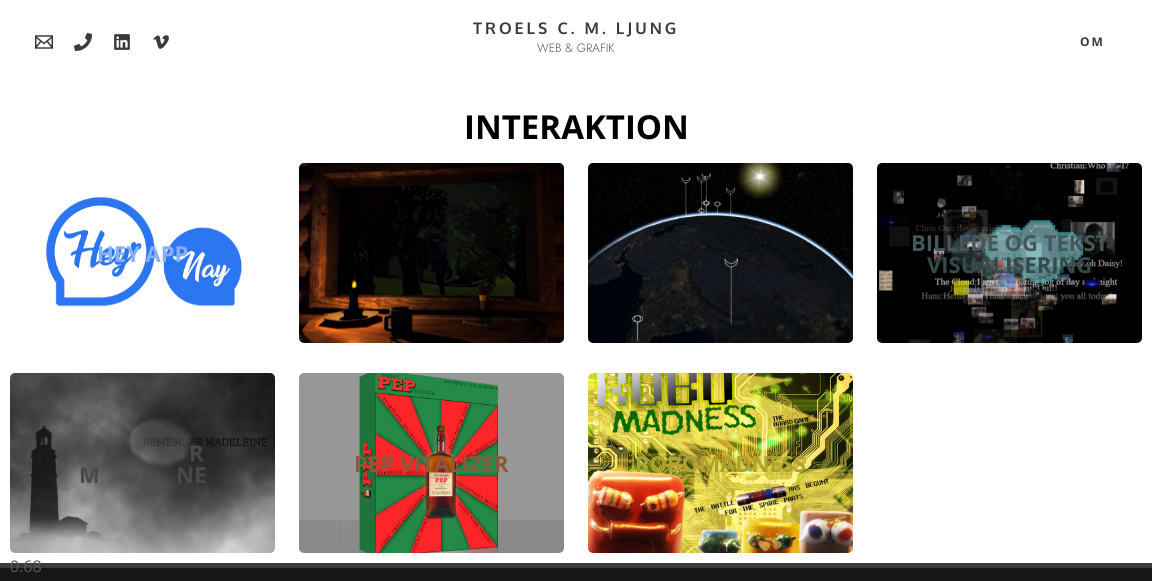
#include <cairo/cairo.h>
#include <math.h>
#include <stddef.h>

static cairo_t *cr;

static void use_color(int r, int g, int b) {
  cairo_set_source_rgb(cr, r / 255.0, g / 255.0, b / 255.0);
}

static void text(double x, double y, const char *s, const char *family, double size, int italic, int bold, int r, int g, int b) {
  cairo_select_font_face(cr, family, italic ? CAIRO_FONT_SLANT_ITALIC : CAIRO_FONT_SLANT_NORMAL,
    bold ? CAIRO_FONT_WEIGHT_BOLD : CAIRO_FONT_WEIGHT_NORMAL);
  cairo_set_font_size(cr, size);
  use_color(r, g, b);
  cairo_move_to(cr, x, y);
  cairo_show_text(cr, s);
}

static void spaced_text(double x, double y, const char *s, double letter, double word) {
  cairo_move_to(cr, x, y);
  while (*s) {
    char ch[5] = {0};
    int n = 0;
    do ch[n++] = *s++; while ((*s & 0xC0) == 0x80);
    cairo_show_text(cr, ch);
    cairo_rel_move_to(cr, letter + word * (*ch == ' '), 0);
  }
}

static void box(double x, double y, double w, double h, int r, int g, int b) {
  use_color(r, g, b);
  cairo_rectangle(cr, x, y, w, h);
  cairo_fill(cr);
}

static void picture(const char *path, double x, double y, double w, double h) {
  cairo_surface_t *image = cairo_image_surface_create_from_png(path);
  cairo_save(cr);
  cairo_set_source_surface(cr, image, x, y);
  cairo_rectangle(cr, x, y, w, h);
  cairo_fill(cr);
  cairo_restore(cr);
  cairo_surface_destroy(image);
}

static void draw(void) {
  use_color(255, 255, 255);
  cairo_paint(cr);
  picture("img_01.png", 35, 35, 18, 14);
  picture("img_02.png", 74, 33, 18, 18);
  picture("img_03.png", 114, 34, 16, 16);
  picture("img_04.png", 153, 35, 16, 14);
  picture("img_05.png", 10, 163, 265, 180);
  picture("img_06.png", 299, 163, 265, 180);
  picture("img_07.png", 588, 163, 265, 180);
  picture("img_08.png", 877, 163, 265, 180);
  picture("img_09.png", 10, 373, 265, 180);
  picture("img_10.png", 299, 373, 265, 180);
  picture("img_11.png", 588, 373, 265, 180);
  box(0, 568, 1152, 13, 22, 22, 22);
  box(0, 563, 1152, 5, 58, 58, 58);
  cairo_select_font_face(cr, "Oxygen", CAIRO_FONT_SLANT_NORMAL, CAIRO_FONT_WEIGHT_BOLD);
  cairo_set_font_size(cr, 16);
  spaced_text(473, 34, "TROELS C. M. LJUNG", 3, 0);
  text(537, 52, "WEB & GRAFIK", "Jost Light", 12, 0, 0, 75, 79, 88);
  cairo_select_font_face(cr, "Open Sans", CAIRO_FONT_SLANT_NORMAL, CAIRO_FONT_WEIGHT_BOLD);
  use_color(58, 58, 58);
  spaced_text(1080, 46, "OM", 2, 0);
  text(464, 139, "INTERAKTION", "Open Sans", 33, 0, 1, 0, 0, 0);
  text(97, 262, "HEY APP", "Open Sans", 22, 0, 1, 134, 176, 247);
  text(911, 251, "BILLEDE OG TEKST", "Open Sans", 22, 0, 1, 68, 88, 91);
  text(927, 273, "VISUALISERING", "Open Sans", 22, 0, 1, 54, 73, 75);
  text(189, 461, "R", "Open Sans", 22, 0, 1, 73, 73, 75);
  text(79, 483, "M", "Open Sans", 22, 0, 1, 73, 73, 75);
  text(176, 483, "NE", "Open Sans", 22, 0, 1, 73, 73, 75);
  text(354, 472, "PEP VITALIZER", "Open Sans", 22, 0, 1, 135, 90, 59);
  text(635, 472, "ROBOMADNESS", "Open Sans", 22, 0, 1, 172, 163, 51);
  text(10, 572, "0.68", "Open Sans", 16, 0, 0, 89, 89, 89);
}

int main(void) {
  cairo_surface_t *surface = cairo_image_surface_create(CAIRO_FORMAT_RGB24, 1152, 581);
  cr = cairo_create(surface);
  cairo_font_options_t *options = cairo_font_options_create();
  cairo_font_options_set_hint_metrics(options, CAIRO_HINT_METRICS_OFF);
  cairo_font_options_set_hint_style(options, CAIRO_HINT_STYLE_NONE);
  cairo_set_font_options(cr, options);
  cairo_set_miter_limit(cr, 4);
  draw();
  cairo_surface_write_to_png(surface, "out.png");
  cairo_font_options_destroy(options);
  cairo_destroy(cr);
  cairo_surface_destroy(surface);
  return 0;
}
